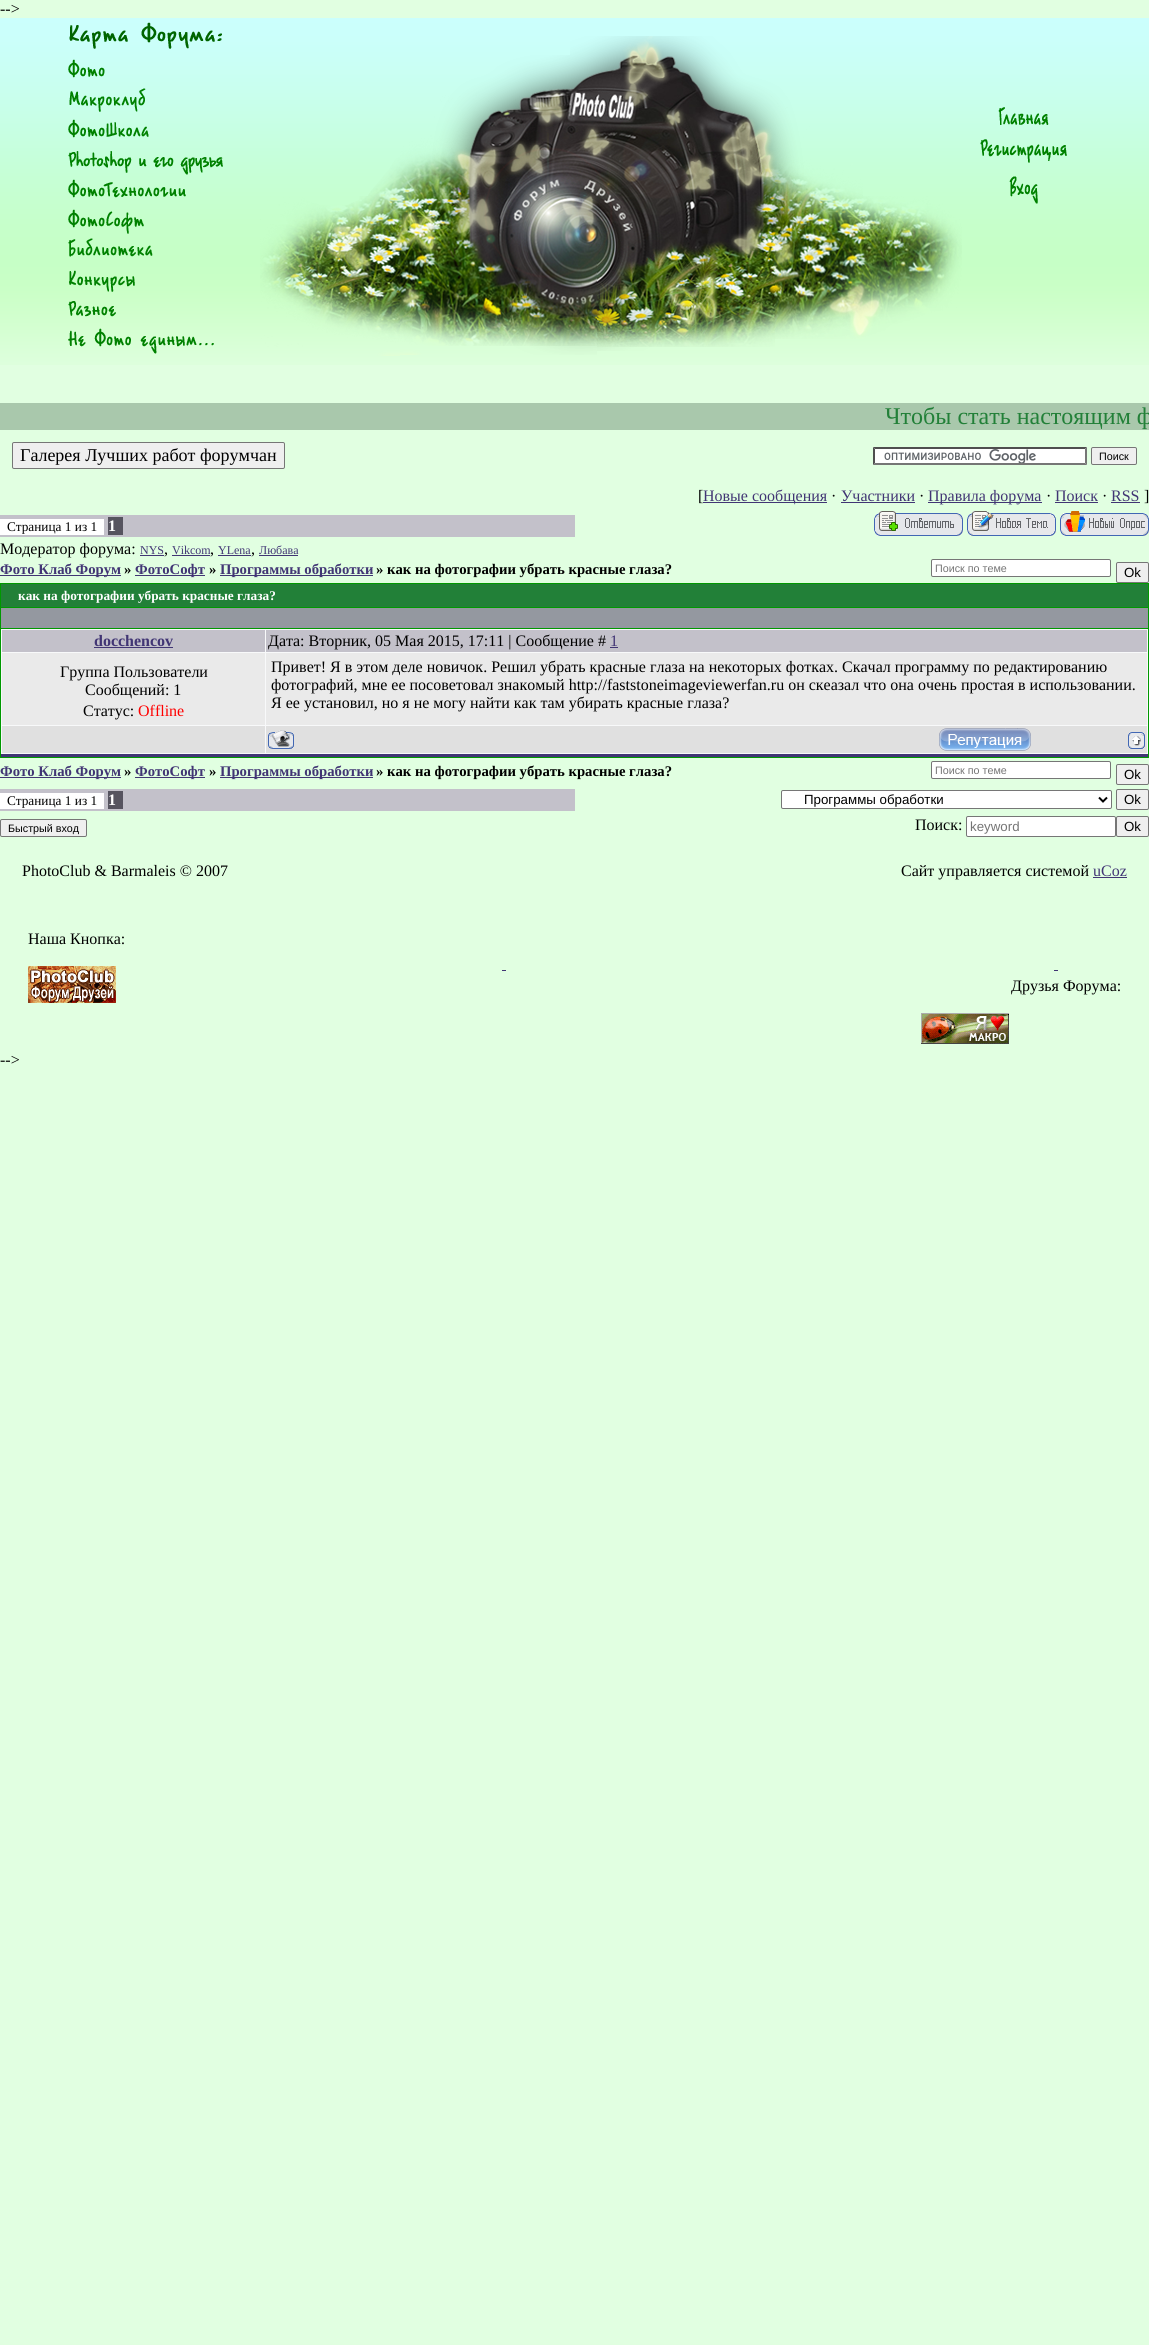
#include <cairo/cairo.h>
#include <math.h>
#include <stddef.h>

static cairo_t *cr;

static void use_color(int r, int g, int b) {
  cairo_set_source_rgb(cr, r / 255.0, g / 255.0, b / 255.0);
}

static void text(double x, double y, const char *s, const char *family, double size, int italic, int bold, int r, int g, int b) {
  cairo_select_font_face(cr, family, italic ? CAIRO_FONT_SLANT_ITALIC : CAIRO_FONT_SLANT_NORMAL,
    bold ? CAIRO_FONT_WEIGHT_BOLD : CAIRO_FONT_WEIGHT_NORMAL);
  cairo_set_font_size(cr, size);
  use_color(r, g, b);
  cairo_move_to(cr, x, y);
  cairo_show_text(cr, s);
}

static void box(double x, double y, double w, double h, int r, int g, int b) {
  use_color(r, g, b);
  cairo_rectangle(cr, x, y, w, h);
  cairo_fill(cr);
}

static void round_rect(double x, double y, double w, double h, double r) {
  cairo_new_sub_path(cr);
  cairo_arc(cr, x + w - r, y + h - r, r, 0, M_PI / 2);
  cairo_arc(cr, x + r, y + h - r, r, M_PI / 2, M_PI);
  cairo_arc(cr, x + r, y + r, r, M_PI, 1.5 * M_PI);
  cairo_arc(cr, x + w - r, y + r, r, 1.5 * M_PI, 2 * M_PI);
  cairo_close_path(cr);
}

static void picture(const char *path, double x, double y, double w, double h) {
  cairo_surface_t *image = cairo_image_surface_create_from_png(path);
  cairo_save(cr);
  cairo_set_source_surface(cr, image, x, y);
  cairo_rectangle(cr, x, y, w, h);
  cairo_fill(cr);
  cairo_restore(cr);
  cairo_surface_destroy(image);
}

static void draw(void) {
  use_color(225, 255, 225);
  cairo_paint(cr);
  picture("img_01.png", 0, 18, 1149, 347);
  picture("img_02.png", 69, 22, 153, 27);
  picture("img_03.png", 368, 55, 202, 141);
  picture("img_04.png", 570, 36, 293, 160);
  picture("img_05.png", 260, 196, 140, 160);
  picture("img_06.png", 400, 196, 197, 159);
  picture("img_07.png", 597, 196, 178, 155);
  picture("img_08.png", 775, 196, 187, 143);
  picture("img_09.png", 998, 107, 51, 18);
  picture("img_10.png", 980, 139, 87, 24);
  picture("img_11.png", 1009, 176, 29, 28);
  picture("img_12.png", 68, 59, 37, 19);
  picture("img_13.png", 69, 88, 77, 24);
  picture("img_14.png", 68, 119, 81, 19);
  picture("img_15.png", 68, 151, 155, 24);
  picture("img_16.png", 68, 179, 118, 19);
  picture("img_17.png", 68, 209, 76, 25);
  picture("img_18.png", 68, 238, 85, 19);
  picture("img_19.png", 69, 270, 66, 22);
  picture("img_20.png", 68, 301, 48, 16);
  picture("img_21.png", 68, 328, 146, 26);
  box(0, 403, 1149, 27, 169, 200, 172);
  use_color(239, 239, 239);
  round_rect(12.5, 442.5, 272, 26, 1.5);
  cairo_fill_preserve(cr);
  use_color(118, 118, 118);
  cairo_set_line_width(cr, 1);
  cairo_stroke(cr);
  box(873, 447, 214, 18, 255, 255, 255);
  picture("img_22.png", 884, 449, 152, 14);
  use_color(79, 79, 79);
  cairo_new_path(cr);
  cairo_move_to(cr, 873, 447);
  cairo_line_to(cr, 1087, 447);
  cairo_line_to(cr, 1085, 449);
  cairo_line_to(cr, 875, 449);
  cairo_close_path(cr);
  cairo_fill(cr);
  use_color(118, 118, 118);
  cairo_new_path(cr);
  cairo_move_to(cr, 1087, 447);
  cairo_line_to(cr, 1087, 465);
  cairo_line_to(cr, 1085, 463);
  cairo_line_to(cr, 1085, 449);
  cairo_close_path(cr);
  cairo_fill(cr);
  cairo_new_path(cr);
  cairo_move_to(cr, 1087, 465);
  cairo_line_to(cr, 873, 465);
  cairo_line_to(cr, 875, 463);
  cairo_line_to(cr, 1085, 463);
  cairo_close_path(cr);
  cairo_fill(cr);
  use_color(79, 79, 79);
  cairo_new_path(cr);
  cairo_move_to(cr, 873, 465);
  cairo_line_to(cr, 873, 447);
  cairo_line_to(cr, 875, 449);
  cairo_line_to(cr, 875, 463);
  cairo_close_path(cr);
  cairo_fill(cr);
  use_color(239, 239, 239);
  round_rect(1091.5, 447.5, 45, 17, 1.5);
  cairo_fill_preserve(cr);
  use_color(118, 118, 118);
  cairo_stroke(cr);
  box(703, 502, 124, 1, 65, 53, 116);
  box(841, 502, 74, 1, 65, 53, 116);
  box(928, 502, 114, 1, 65, 53, 116);
  box(1055, 502, 43, 1, 65, 53, 116);
  box(1111, 502, 29, 1, 65, 53, 116);
  box(0, 515, 575, 22, 195, 193, 202);
  box(0, 519, 104, 16, 255, 255, 255);
  box(108, 517, 15, 18, 86, 84, 95);
  picture("img_23.png", 874, 511, 89, 25);
  picture("img_24.png", 967, 511, 89, 25);
  picture("img_25.png", 1060, 511, 89, 25);
  box(140, 555, 24, 1, 65, 53, 116);
  box(172, 555, 38, 1, 65, 53, 116);
  box(218, 555, 33, 1, 65, 53, 116);
  box(259, 555, 39, 1, 65, 53, 116);
  box(0, 575, 121, 1, 65, 53, 116);
  box(135, 575, 70, 1, 65, 53, 116);
  box(220, 575, 153, 1, 65, 53, 116);
  use_color(255, 255, 255);
  round_rect(931.5, 559.5, 179, 17, 1.5);
  cairo_fill_preserve(cr);
  use_color(118, 118, 118);
  cairo_stroke(cr);
  use_color(239, 239, 239);
  round_rect(1116.5, 562.5, 32, 20, 1.5);
  cairo_fill_preserve(cr);
  use_color(118, 118, 118);
  cairo_stroke(cr);
  box(0, 583, 1149, 175, 0, 153, 0);
  box(1, 584, 1147, 23, 34, 128, 56);
  box(1, 608, 1147, 20, 148, 152, 160);
  box(1, 629, 1147, 125, 248, 249, 250);
  box(1, 754, 1147, 3, 65, 53, 116);
  box(2, 630, 263, 22, 195, 193, 202);
  box(94, 647, 79, 1, 65, 53, 116);
  box(266, 630, 881, 22, 195, 193, 202);
  box(610, 647, 8, 1, 65, 53, 116);
  box(2, 653, 263, 72, 234, 234, 234);
  box(266, 653, 881, 72, 234, 234, 234);
  box(2, 726, 263, 27, 224, 224, 224);
  box(266, 726, 881, 27, 224, 224, 224);
  picture("img_26.png", 268, 730, 26, 19);
  picture("img_27.png", 939, 728, 92, 23);
  picture("img_28.png", 1128, 732, 17, 17);
  box(0, 777, 121, 1, 65, 53, 116);
  box(135, 777, 70, 1, 65, 53, 116);
  box(220, 777, 153, 1, 65, 53, 116);
  use_color(255, 255, 255);
  round_rect(931.5, 761.5, 179, 17, 1.5);
  cairo_fill_preserve(cr);
  use_color(118, 118, 118);
  cairo_stroke(cr);
  use_color(239, 239, 239);
  round_rect(1116.5, 764.5, 32, 20, 1.5);
  cairo_fill_preserve(cr);
  use_color(118, 118, 118);
  cairo_stroke(cr);
  box(0, 789, 575, 22, 195, 193, 202);
  box(0, 793, 104, 16, 255, 255, 255);
  box(108, 791, 15, 18, 86, 84, 95);
  use_color(255, 255, 255);
  round_rect(781.5, 790.5, 330, 18, 1.5);
  cairo_fill_preserve(cr);
  use_color(118, 118, 118);
  cairo_stroke(cr);
  cairo_new_path(cr);
  cairo_move_to(cr, 1099, 797.5);
  cairo_line_to(cr, 1103, 801.5);
  cairo_line_to(cr, 1107, 797.5);
  use_color(0, 0, 0);
  cairo_set_line_width(cr, 2);
  cairo_stroke(cr);
  use_color(239, 239, 239);
  round_rect(1116.5, 789.5, 32, 20, 1.5);
  cairo_fill_preserve(cr);
  use_color(118, 118, 118);
  cairo_set_line_width(cr, 1);
  cairo_stroke(cr);
  use_color(239, 239, 239);
  round_rect(0.5, 819.5, 86, 17, 1.5);
  cairo_fill_preserve(cr);
  use_color(118, 118, 118);
  cairo_stroke(cr);
  use_color(255, 255, 255);
  round_rect(966.5, 816.5, 149, 20, 1.5);
  cairo_fill_preserve(cr);
  use_color(118, 118, 118);
  cairo_stroke(cr);
  use_color(239, 239, 239);
  round_rect(1116.5, 816.5, 32, 20, 1.5);
  cairo_fill_preserve(cr);
  use_color(118, 118, 118);
  cairo_stroke(cr);
  box(1093, 877, 34, 1, 65, 53, 116);
  picture("img_29.png", 28, 966, 88, 37);
  box(502, 970, 4, 1, 65, 53, 116);
  box(1054, 970, 4, 1, 65, 53, 116);
  picture("img_30.png", 921, 1013, 88, 31);
  text(0, 14, "-->", "Liberation Serif", 16, 0, 0, 0, 0, 0);
  text(885, 424, "Чтобы стать настоящим ф", "Liberation Serif", 24, 0, 0, 34, 128, 56);
  text(20, 461, "Галерея Лучших работ форумчан", "Liberation Serif", 18, 0, 0, 0, 0, 0);
  text(1099, 460, "Поиск", "Liberation Sans", 10.75, 0, 0, 0, 0, 0);
  text(698, 501, "[", "Liberation Serif", 16, 0, 0, 0, 0, 0);
  text(703, 501, "Новые сообщения", "Liberation Serif", 16, 0, 0, 65, 53, 116);
  text(831, 501, "·", "Liberation Serif", 16, 0, 0, 0, 0, 0);
  text(841, 501, "Участники", "Liberation Serif", 16, 0, 0, 65, 53, 116);
  text(919, 501, "·", "Liberation Serif", 16, 0, 0, 0, 0, 0);
  text(928, 501, "Правила форума", "Liberation Serif", 16, 0, 0, 65, 53, 116);
  text(1046, 501, "·", "Liberation Serif", 16, 0, 0, 0, 0, 0);
  text(1055, 501, "Поиск", "Liberation Serif", 16, 0, 0, 65, 53, 116);
  text(1102, 501, "·", "Liberation Serif", 16, 0, 0, 0, 0, 0);
  text(1111, 501, "RSS", "Liberation Serif", 16, 0, 0, 65, 53, 116);
  text(1144, 501, "]", "Liberation Serif", 16, 0, 0, 0, 0, 0);
  text(7, 531, "Страница 1 из 1", "Liberation Serif", 13.3, 0, 0, 0, 0, 0);
  text(108, 531, "1", "Liberation Serif", 16, 0, 1, 255, 255, 255);
  text(0, 554, "Модератор форума:", "Liberation Serif", 16, 0, 0, 0, 0, 0);
  text(140, 554, "NYS", "Liberation Serif", 12, 0, 0, 65, 53, 116);
  text(164, 554, ",", "Liberation Serif", 16, 0, 0, 0, 0, 0);
  text(172, 554, "Vikcom", "Liberation Serif", 12, 0, 0, 65, 53, 116);
  text(210, 554, ",", "Liberation Serif", 16, 0, 0, 0, 0, 0);
  text(218, 554, "YLena", "Liberation Serif", 12, 0, 0, 65, 53, 116);
  text(251, 554, ",", "Liberation Serif", 16, 0, 0, 0, 0, 0);
  text(259, 554, "Любава", "Liberation Serif", 12, 0, 0, 65, 53, 116);
  text(0, 574, "Фото Клаб Форум", "Liberation Serif", 14.7, 0, 1, 65, 53, 116);
  text(124, 574, "»", "Liberation Serif", 14.7, 0, 1, 0, 0, 0);
  text(135, 574, "ФотоСофт", "Liberation Serif", 14.7, 0, 1, 65, 53, 116);
  text(209, 574, "»", "Liberation Serif", 14.7, 0, 1, 0, 0, 0);
  text(220, 574, "Программы обработки", "Liberation Serif", 14.7, 0, 1, 65, 53, 116);
  text(376, 574, "» как на фотографии убрать красные глаза?", "Liberation Serif", 14.7, 0, 1, 0, 0, 0);
  text(935, 572, "Поиск по теме", "Liberation Sans", 10.75, 0, 0, 117, 117, 117);
  text(1124, 577, "Ok", "Liberation Sans", 13.3, 0, 0, 0, 0, 0);
  text(18, 600, "как на фотографии убрать красные глаза?", "Liberation Serif", 13.3, 0, 1, 255, 255, 255);
  text(94, 646, "docchencov", "Liberation Serif", 16, 0, 1, 65, 53, 116);
  text(268, 646, "Дата: Вторник, 05 Мая 2015, 17:11 | Сообщение #", "Liberation Serif", 16, 0, 0, 0, 0, 0);
  text(610, 646, "1", "Liberation Serif", 16, 0, 0, 65, 53, 116);
  text(60, 677, "Группа Пользователи", "Liberation Serif", 16, 0, 0, 0, 0, 0);
  text(85, 695, "Сообщений: 1", "Liberation Serif", 16, 0, 0, 0, 0, 0);
  text(83, 716, "Статус:", "Liberation Serif", 16, 0, 0, 0, 0, 0);
  text(138, 716, "Offline", "Liberation Serif", 16, 0, 0, 255, 0, 0);
  text(271, 672, "Привет! Я в этом деле новичок. Решил убрать красные глаза на некоторых фотках. Скачал программу по редактированию", "Liberation Serif", 16, 0, 0, 0, 0, 0);
  text(271, 690, "фотографий, мне ее посоветовал знакомый http://faststoneimageviewerfan.ru он скеазал что она очень простая в использовании.", "Liberation Serif", 16, 0, 0, 0, 0, 0);
  text(271, 708, "Я ее установил, но я не могу найти как там убирать красные глаза?", "Liberation Serif", 16, 0, 0, 0, 0, 0);
  text(0, 776, "Фото Клаб Форум", "Liberation Serif", 14.7, 0, 1, 65, 53, 116);
  text(124, 776, "»", "Liberation Serif", 14.7, 0, 1, 0, 0, 0);
  text(135, 776, "ФотоСофт", "Liberation Serif", 14.7, 0, 1, 65, 53, 116);
  text(209, 776, "»", "Liberation Serif", 14.7, 0, 1, 0, 0, 0);
  text(220, 776, "Программы обработки", "Liberation Serif", 14.7, 0, 1, 65, 53, 116);
  text(376, 776, "» как на фотографии убрать красные глаза?", "Liberation Serif", 14.7, 0, 1, 0, 0, 0);
  text(935, 774, "Поиск по теме", "Liberation Sans", 10.75, 0, 0, 117, 117, 117);
  text(1124, 779, "Ok", "Liberation Sans", 13.3, 0, 0, 0, 0, 0);
  text(7, 805, "Страница 1 из 1", "Liberation Serif", 13.3, 0, 0, 0, 0, 0);
  text(108, 805, "1", "Liberation Serif", 16, 0, 1, 255, 255, 255);
  text(804, 804, "Программы обработки", "Liberation Sans", 13.3, 0, 0, 0, 0, 0);
  text(1124, 804, "Ok", "Liberation Sans", 13.3, 0, 0, 0, 0, 0);
  text(8, 832, "Быстрый вход", "Liberation Sans", 10.75, 0, 0, 0, 0, 0);
  text(915, 830, "Поиск:", "Liberation Serif", 16, 0, 0, 0, 0, 0);
  text(970, 831, "keyword", "Liberation Sans", 13.3, 0, 0, 117, 117, 117);
  text(1124, 831, "Ok", "Liberation Sans", 13.3, 0, 0, 0, 0, 0);
  text(22, 876, "PhotoClub & Barmaleis © 2007", "Liberation Serif", 16, 0, 0, 0, 0, 0);
  text(901, 876, "Сайт управляется системой", "Liberation Serif", 16, 0, 0, 0, 0, 0);
  text(1093, 876, "uCoz", "Liberation Serif", 16, 0, 0, 65, 53, 116);
  text(28, 944, "Наша Кнопка:", "Liberation Serif", 16, 0, 0, 0, 0, 0);
  text(1011, 991, "Друзья Форума:", "Liberation Serif", 16, 0, 0, 0, 0, 0);
  text(0, 1065, "-->", "Liberation Serif", 16, 0, 0, 0, 0, 0);
}

int main(void) {
  cairo_surface_t *surface = cairo_image_surface_create(CAIRO_FORMAT_RGB24, 1149, 2345);
  cr = cairo_create(surface);
  cairo_font_options_t *options = cairo_font_options_create();
  cairo_font_options_set_hint_metrics(options, CAIRO_HINT_METRICS_OFF);
  cairo_font_options_set_hint_style(options, CAIRO_HINT_STYLE_NONE);
  cairo_set_font_options(cr, options);
  cairo_set_miter_limit(cr, 4);
  draw();
  cairo_surface_write_to_png(surface, "out.png");
  cairo_font_options_destroy(options);
  cairo_destroy(cr);
  cairo_surface_destroy(surface);
  return 0;
}
